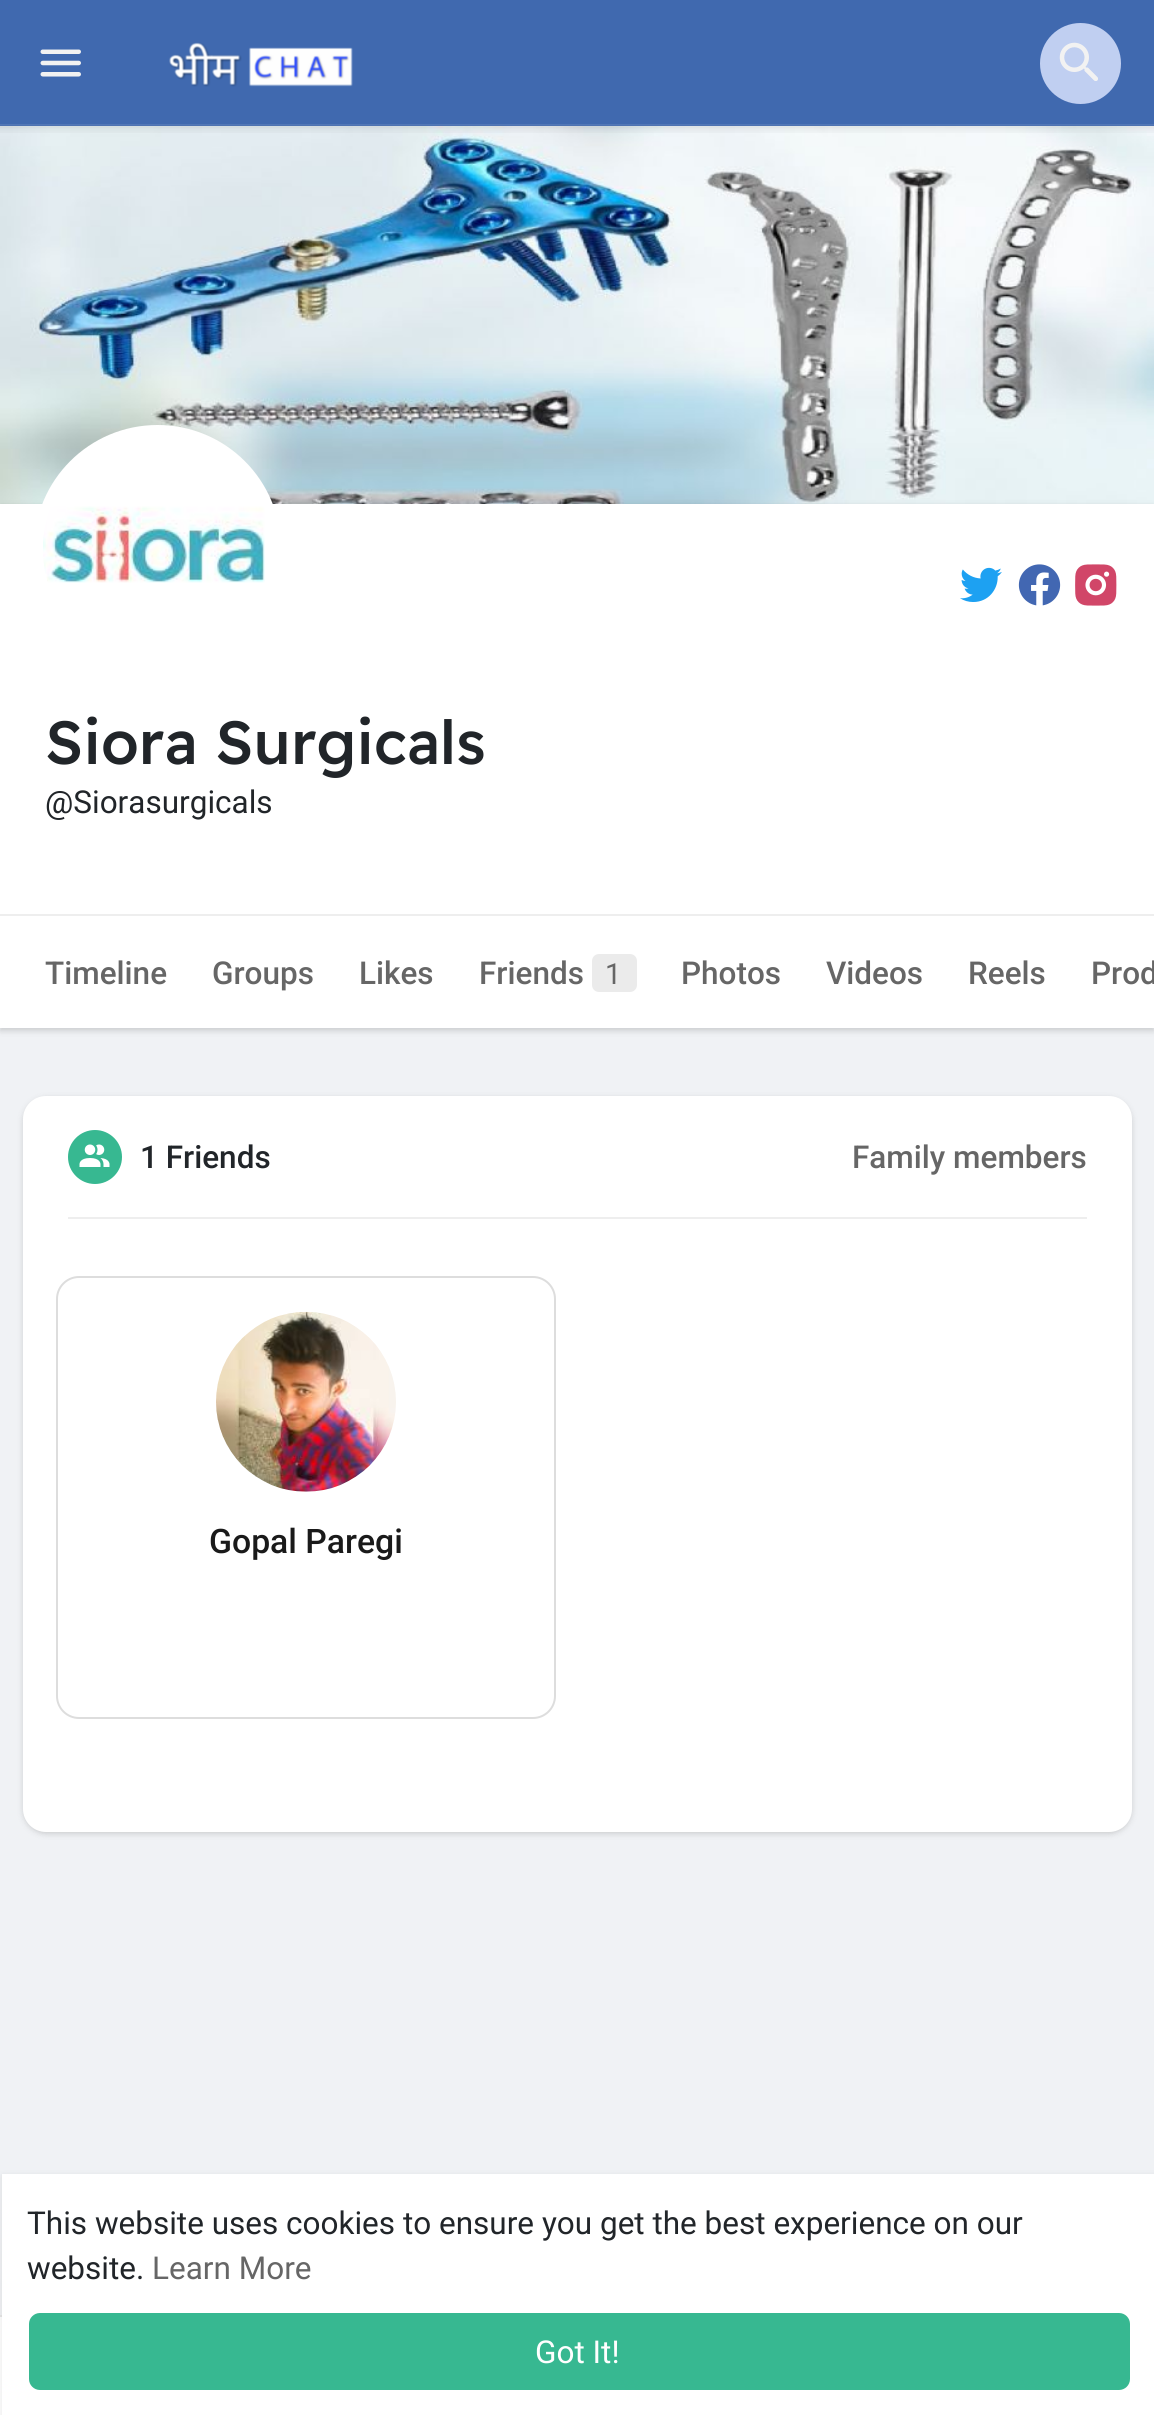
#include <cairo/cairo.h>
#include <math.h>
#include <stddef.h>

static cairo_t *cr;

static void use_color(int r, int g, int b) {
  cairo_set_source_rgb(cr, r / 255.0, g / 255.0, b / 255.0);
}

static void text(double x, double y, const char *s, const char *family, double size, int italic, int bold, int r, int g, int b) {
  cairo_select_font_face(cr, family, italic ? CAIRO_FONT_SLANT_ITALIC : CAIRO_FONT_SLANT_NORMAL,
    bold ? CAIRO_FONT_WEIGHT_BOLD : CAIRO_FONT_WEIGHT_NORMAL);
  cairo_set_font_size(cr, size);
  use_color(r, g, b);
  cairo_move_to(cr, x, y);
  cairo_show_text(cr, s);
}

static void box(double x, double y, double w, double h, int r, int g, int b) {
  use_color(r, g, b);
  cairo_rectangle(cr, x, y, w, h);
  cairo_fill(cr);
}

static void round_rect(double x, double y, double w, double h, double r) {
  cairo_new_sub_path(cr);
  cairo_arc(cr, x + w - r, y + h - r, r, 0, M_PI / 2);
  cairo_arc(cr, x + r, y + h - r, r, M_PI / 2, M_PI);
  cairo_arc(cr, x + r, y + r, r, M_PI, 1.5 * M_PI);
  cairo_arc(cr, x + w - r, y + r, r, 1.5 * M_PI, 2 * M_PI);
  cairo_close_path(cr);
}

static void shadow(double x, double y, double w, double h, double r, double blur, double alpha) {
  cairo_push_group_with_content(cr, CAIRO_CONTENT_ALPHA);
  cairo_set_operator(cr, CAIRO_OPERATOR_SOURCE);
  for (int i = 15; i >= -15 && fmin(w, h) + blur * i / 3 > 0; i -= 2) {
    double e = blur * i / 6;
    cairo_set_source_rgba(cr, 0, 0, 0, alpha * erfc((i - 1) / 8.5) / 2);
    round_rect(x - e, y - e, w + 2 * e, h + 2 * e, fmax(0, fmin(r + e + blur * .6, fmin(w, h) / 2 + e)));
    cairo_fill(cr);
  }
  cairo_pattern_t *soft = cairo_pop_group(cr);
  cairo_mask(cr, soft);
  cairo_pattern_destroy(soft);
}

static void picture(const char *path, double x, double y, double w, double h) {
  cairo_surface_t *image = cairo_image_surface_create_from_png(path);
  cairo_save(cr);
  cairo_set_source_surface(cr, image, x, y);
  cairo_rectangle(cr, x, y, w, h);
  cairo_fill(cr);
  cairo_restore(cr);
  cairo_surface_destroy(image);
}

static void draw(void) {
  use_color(240, 242, 245);
  cairo_paint(cr);
  box(0, 0, 1154, 126, 64, 105, 175);
  picture("img_01.png", 40, 49, 41, 28);
  picture("img_02.png", 169, 42, 184, 45);
  use_color(192, 207, 241);
  cairo_arc(cr, 1080.5, 63.5, 40.5, 0, 2 * M_PI);
  cairo_fill(cr);
  picture("img_03.png", 1059, 42, 39, 39);
  picture("img_05.png", 0, 126, 1154, 378);
  picture("img_04.png", 0, 124, 1154, 9);
  use_color(0, 0, 0);
  shadow(0, 506, 1154, 525, 0, 2, 0.06);
  shadow(0, 506, 1154, 525, 0, 3.5, 0.1);
  box(0, 504, 1154, 524, 255, 255, 255);
  round_rect(34, 425, 247, 248, 123.5);
  cairo_fill(cr);
  picture("img_06.png", 43, 506, 222, 77);
  picture("img_07.png", 960, 567, 42, 35);
  picture("img_08.png", 1018, 564, 43, 42);
  picture("img_09.png", 1075, 564, 42, 42);
  box(0, 914, 1154, 2, 238, 238, 238);
  use_color(235, 235, 235);
  round_rect(592, 954, 45, 38, 7);
  cairo_fill(cr);
  use_color(0, 0, 0);
  shadow(23, 1098, 1109, 736, 23, 2, 0.06);
  shadow(23, 1098, 1109, 736, 23, 3.5, 0.1);
  use_color(255, 255, 255);
  round_rect(23, 1096, 1109, 736, 23);
  cairo_fill(cr);
  box(68, 1217, 1019, 2, 238, 238, 238);
  use_color(55, 184, 145);
  cairo_arc(cr, 95, 1157, 27, 0, 2 * M_PI);
  cairo_fill(cr);
  picture("img_10.png", 79, 1144, 31, 23);
  round_rect(57, 1277, 498, 441, 22);
  use_color(221, 221, 221);
  cairo_stroke(cr);
  picture("img_11.png", 216, 1311, 180, 181);
  box(0, 2317, 2, 98, 255, 255, 255);
  box(0, 2315, 2, 2, 230, 230, 230);
  use_color(0, 0, 0);
  shadow(2, 2176, 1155, 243, 0, 3.5, 0.1);
  box(2, 2174, 1152, 241, 255, 255, 255);
  use_color(55, 184, 145);
  round_rect(29, 2313, 1101, 77, 11);
  cairo_fill(cr);
  text(45, 764, "Siora Surgicals", "Readex Pro Medium", 60.75, 0, 0, 33, 37, 41);
  text(45, 813, "@Siorasurgicals", "Roboto", 31.5, 0, 0, 33, 37, 41);
  text(45, 984, "Timeline", "Roboto Medium", 31.5, 0, 0, 102, 102, 102);
  text(212, 984, "Groups", "Roboto Medium", 31.5, 0, 0, 102, 102, 102);
  text(359, 984, "Likes", "Roboto Medium", 31.5, 0, 0, 102, 102, 102);
  text(479, 984, "Friends", "Roboto Medium", 31.5, 0, 0, 102, 102, 102);
  text(605, 984, "1", "Roboto", 29, 0, 0, 102, 102, 102);
  text(681, 984, "Photos", "Roboto Medium", 31.5, 0, 0, 102, 102, 102);
  text(826, 984, "Videos", "Roboto Medium", 31.5, 0, 0, 102, 102, 102);
  text(968, 984, "Reels", "Roboto Medium", 31.5, 0, 0, 102, 102, 102);
  text(1091, 984, "Prod", "Roboto Medium", 31.5, 0, 0, 102, 102, 102);
  text(140, 1168, "1 Friends", "Roboto Medium", 31.5, 0, 0, 33, 37, 41);
  text(852, 1168, "Family members", "Roboto Medium", 31.5, 0, 0, 102, 102, 102);
  text(209, 1553, "Gopal Paregi", "Roboto Medium", 33.75, 0, 0, 26, 26, 26);
  text(27, 2234, "This website uses cookies to ensure you get the best experience on our", "Roboto", 31.5, 0, 0, 33, 37, 41);
  text(27, 2279, "website.", "Roboto", 31.5, 0, 0, 33, 37, 41);
  text(152, 2279, "Learn More", "Roboto", 31.5, 0, 0, 102, 102, 102);
  text(535, 2363, "Got It!", "Roboto", 31.5, 0, 0, 255, 255, 255);
}

int main(void) {
  cairo_surface_t *surface = cairo_image_surface_create(CAIRO_FORMAT_RGB24, 1154, 2415);
  cr = cairo_create(surface);
  cairo_font_options_t *options = cairo_font_options_create();
  cairo_font_options_set_hint_metrics(options, CAIRO_HINT_METRICS_OFF);
  cairo_font_options_set_hint_style(options, CAIRO_HINT_STYLE_NONE);
  cairo_set_font_options(cr, options);
  cairo_set_miter_limit(cr, 4);
  draw();
  cairo_surface_write_to_png(surface, "out.png");
  cairo_font_options_destroy(options);
  cairo_destroy(cr);
  cairo_surface_destroy(surface);
  return 0;
}
